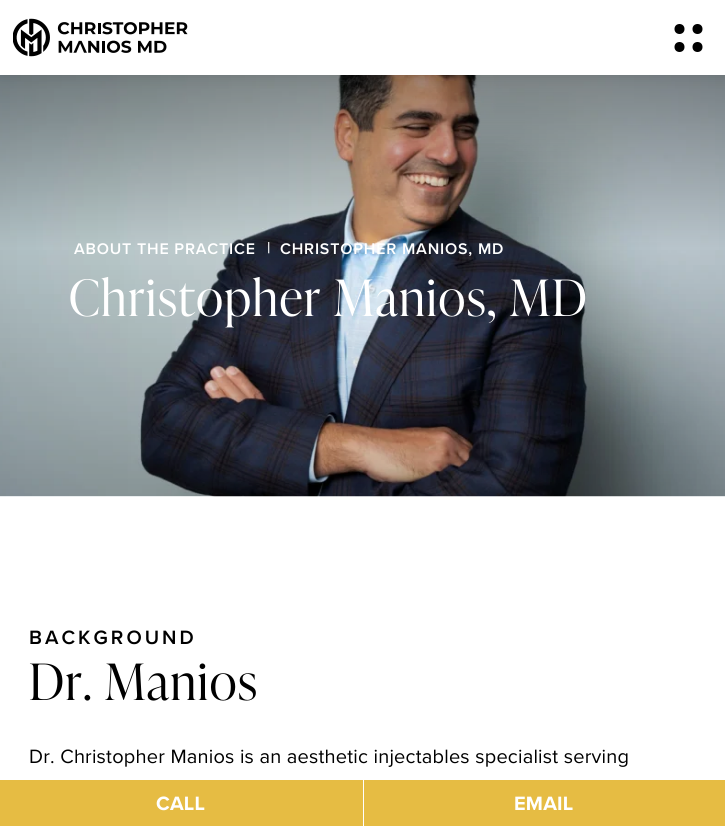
#include <cairo/cairo.h>
#include <math.h>
#include <stddef.h>

static cairo_t *cr;

static void use_color(int r, int g, int b) {
  cairo_set_source_rgb(cr, r / 255.0, g / 255.0, b / 255.0);
}

static void spaced_text(double x, double y, const char *s, double letter, double word) {
  cairo_move_to(cr, x, y);
  while (*s) {
    char ch[5] = {0};
    int n = 0;
    do ch[n++] = *s++; while ((*s & 0xC0) == 0x80);
    cairo_show_text(cr, ch);
    cairo_rel_move_to(cr, letter + word * (*ch == ' '), 0);
  }
}

static void box(double x, double y, double w, double h, int r, int g, int b) {
  use_color(r, g, b);
  cairo_rectangle(cr, x, y, w, h);
  cairo_fill(cr);
}

static void round_rect(double x, double y, double w, double h, double r) {
  cairo_new_sub_path(cr);
  cairo_arc(cr, x + w - r, y + h - r, r, 0, M_PI / 2);
  cairo_arc(cr, x + r, y + h - r, r, M_PI / 2, M_PI);
  cairo_arc(cr, x + r, y + r, r, M_PI, 1.5 * M_PI);
  cairo_arc(cr, x + w - r, y + r, r, 1.5 * M_PI, 2 * M_PI);
  cairo_close_path(cr);
}

static void shadow(double x, double y, double w, double h, double r, double blur, double alpha) {
  cairo_push_group_with_content(cr, CAIRO_CONTENT_ALPHA);
  cairo_set_operator(cr, CAIRO_OPERATOR_SOURCE);
  for (int i = 15; i >= -15 && fmin(w, h) + blur * i / 3 > 0; i -= 2) {
    double e = blur * i / 6;
    cairo_set_source_rgba(cr, 0, 0, 0, alpha * erfc((i - 1) / 8.5) / 2);
    round_rect(x - e, y - e, w + 2 * e, h + 2 * e, fmax(0, fmin(r + e + blur * .6, fmin(w, h) / 2 + e)));
    cairo_fill(cr);
  }
  cairo_pattern_t *soft = cairo_pop_group(cr);
  cairo_mask(cr, soft);
  cairo_pattern_destroy(soft);
}

static void picture(const char *path, double x, double y, double w, double h) {
  cairo_surface_t *image = cairo_image_surface_create_from_png(path);
  cairo_save(cr);
  cairo_set_source_surface(cr, image, x, y);
  cairo_rectangle(cr, x, y, w, h);
  cairo_fill(cr);
  cairo_restore(cr);
  cairo_surface_destroy(image);
}

static void draw(void) {
  use_color(255, 255, 255);
  cairo_paint(cr);
  picture("img_02.png", 0, 75, 725, 422);
  use_color(0, 0, 0);
  shadow(0, 0, 725, 75, 0, 6, 0.1);
  box(0, 0, 725, 75, 255, 255, 255);
  picture("img_01.png", 13, 18, 175, 39);
  use_color(0, 0, 0);
  cairo_arc(cr, 679.5, 29, 5, 0, 2 * M_PI);
  cairo_fill(cr);
  cairo_arc(cr, 697.5, 29, 5, 0, 2 * M_PI);
  cairo_fill(cr);
  cairo_arc(cr, 679.5, 47, 5, 0, 2 * M_PI);
  cairo_fill(cr);
  cairo_arc(cr, 697.5, 47, 5, 0, 2 * M_PI);
  cairo_fill(cr);
  cairo_set_source_rgba(cr, 0.898, 0.733, 0.251, 0.98);
  cairo_rectangle(cr, 0, 780, 725, 46);
  cairo_fill(cr);
  box(363, 780, 1, 46, 255, 255, 255);
  cairo_select_font_face(cr, "Proxima Nova SemiBold", CAIRO_FONT_SLANT_NORMAL, CAIRO_FONT_WEIGHT_NORMAL);
  cairo_set_font_size(cr, 16);
  spaced_text(74, 254, "ABOUT THE PRACTICE", 0.8, 0);
  spaced_text(267, 253, "|", 0.8, 0);
  spaced_text(280, 254, "CHRISTOPHER MANIOS, MD", 0.8, 0);
  cairo_select_font_face(cr, "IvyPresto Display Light", CAIRO_FONT_SLANT_NORMAL, CAIRO_FONT_WEIGHT_NORMAL);
  cairo_set_font_size(cr, 50);
  spaced_text(69, 316, "Christopher Manios, MD", 1.6, 0);
  cairo_select_font_face(cr, "Proxima Nova SemiBold", CAIRO_FONT_SLANT_NORMAL, CAIRO_FONT_WEIGHT_NORMAL);
  cairo_set_font_size(cr, 20);
  use_color(0, 0, 0);
  spaced_text(29, 644, "BACKGROUND", 3, 0);
  cairo_select_font_face(cr, "IvyPresto Display Light", CAIRO_FONT_SLANT_NORMAL, CAIRO_FONT_WEIGHT_NORMAL);
  cairo_set_font_size(cr, 50);
  spaced_text(29, 700, "Dr. Manios", 1.6, 0);
  cairo_select_font_face(cr, "Proxima Nova", CAIRO_FONT_SLANT_NORMAL, CAIRO_FONT_WEIGHT_NORMAL);
  cairo_set_font_size(cr, 20);
  spaced_text(29, 763, "Dr. Christopher Manios is an aesthetic injectables specialist serving", 0.2, 0);
  cairo_select_font_face(cr, "Proxima Nova", CAIRO_FONT_SLANT_NORMAL, CAIRO_FONT_WEIGHT_BOLD);
  use_color(255, 255, 255);
  spaced_text(156, 810, "CALL", 0.2, 0);
  spaced_text(514, 810, "EMAIL", 0.2, 0);
}

int main(void) {
  cairo_surface_t *surface = cairo_image_surface_create(CAIRO_FORMAT_RGB24, 725, 826);
  cr = cairo_create(surface);
  cairo_font_options_t *options = cairo_font_options_create();
  cairo_font_options_set_hint_metrics(options, CAIRO_HINT_METRICS_OFF);
  cairo_font_options_set_hint_style(options, CAIRO_HINT_STYLE_NONE);
  cairo_set_font_options(cr, options);
  cairo_set_miter_limit(cr, 4);
  draw();
  cairo_surface_write_to_png(surface, "out.png");
  cairo_font_options_destroy(options);
  cairo_destroy(cr);
  cairo_surface_destroy(surface);
  return 0;
}
